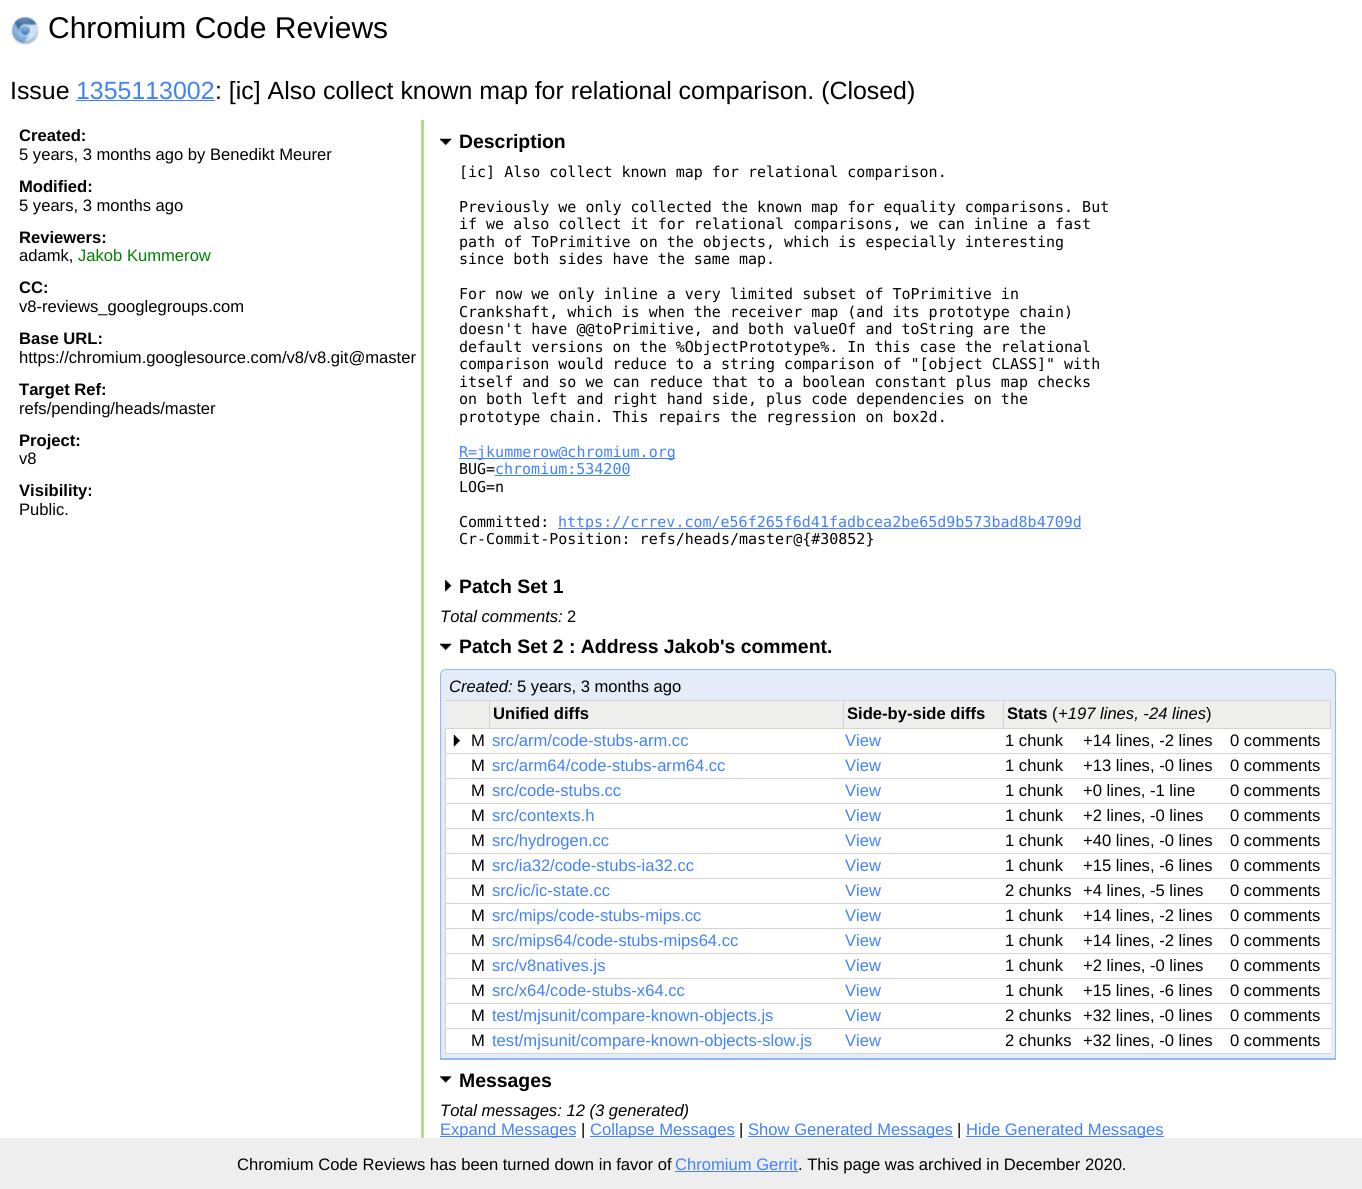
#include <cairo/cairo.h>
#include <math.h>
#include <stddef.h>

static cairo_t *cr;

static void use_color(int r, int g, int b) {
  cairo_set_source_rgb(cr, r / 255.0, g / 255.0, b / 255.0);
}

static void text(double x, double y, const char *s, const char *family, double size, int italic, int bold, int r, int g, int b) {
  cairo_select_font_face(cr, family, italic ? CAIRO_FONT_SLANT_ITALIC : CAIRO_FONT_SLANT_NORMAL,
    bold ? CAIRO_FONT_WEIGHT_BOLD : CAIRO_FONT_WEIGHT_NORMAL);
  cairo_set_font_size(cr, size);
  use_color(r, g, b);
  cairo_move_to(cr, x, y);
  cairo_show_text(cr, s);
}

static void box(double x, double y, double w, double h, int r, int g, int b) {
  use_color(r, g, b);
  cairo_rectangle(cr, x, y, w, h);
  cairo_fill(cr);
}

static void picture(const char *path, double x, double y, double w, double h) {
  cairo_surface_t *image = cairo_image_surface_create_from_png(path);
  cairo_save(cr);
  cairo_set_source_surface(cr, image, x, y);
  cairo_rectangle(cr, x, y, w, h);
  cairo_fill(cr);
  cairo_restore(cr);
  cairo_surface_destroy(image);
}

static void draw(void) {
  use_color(255, 255, 255);
  cairo_paint(cr);
  picture("img_01.png", 11, 16, 28, 29);
  box(76, 100, 139, 1, 65, 130, 250);
  box(421, 120, 3, 1018, 183, 217, 147);
  picture("img_02.png", 440, 138, 12, 8);
  box(459, 458, 216, 1, 65, 130, 250);
  box(495, 475, 135, 1, 65, 130, 250);
  box(558, 528, 523, 1, 65, 130, 250);
  picture("img_03.png", 444, 580, 8, 12);
  picture("img_02.png", 440, 643, 12, 8);
  use_color(229, 236, 249);
  cairo_new_path(cr);
  cairo_move_to(cr, 446, 670);
  cairo_line_to(cr, 1330, 670);
  cairo_curve_to(cr, 1333, 670, 1335, 672, 1335, 675);
  cairo_line_to(cr, 1335, 1058);
  cairo_line_to(cr, 441, 1058);
  cairo_line_to(cr, 441, 675);
  cairo_curve_to(cr, 441, 672, 443, 670, 446, 670);
  cairo_close_path(cr);
  cairo_fill(cr);
  cairo_new_path(cr);
  cairo_move_to(cr, 446, 669.5);
  cairo_line_to(cr, 1330, 669.5);
  cairo_curve_to(cr, 1333, 669.5, 1335.5, 672, 1335.5, 675);
  cairo_line_to(cr, 1335.5, 1059.5);
  cairo_line_to(cr, 440.5, 1059.5);
  cairo_line_to(cr, 440.5, 675);
  cairo_curve_to(cr, 440.5, 672, 443, 669.5, 446, 669.5);
  cairo_close_path(cr);
  use_color(147, 183, 250);
  cairo_set_line_width(cr, 1);
  cairo_stroke(cr);
  box(440, 1058, 896, 1, 147, 183, 250);
  box(446, 729, 885, 324, 255, 255, 255);
  box(445, 728, 886, 1, 211, 211, 211);
  box(445, 701, 44, 27, 238, 238, 236);
  box(445, 700, 886, 1, 211, 211, 211);
  box(489, 700, 1, 29, 211, 211, 211);
  box(490, 701, 353, 27, 238, 238, 236);
  box(843, 700, 1, 29, 211, 211, 211);
  box(844, 701, 159, 27, 238, 238, 236);
  box(1003, 700, 1, 29, 211, 211, 211);
  box(1004, 701, 326, 27, 238, 238, 236);
  box(1330, 700, 1, 29, 211, 211, 211);
  box(445, 753, 886, 1, 211, 211, 211);
  picture("img_04.png", 453, 735, 8, 12);
  box(445, 778, 886, 1, 211, 211, 211);
  box(445, 803, 886, 1, 211, 211, 211);
  box(445, 828, 886, 1, 211, 211, 211);
  box(445, 853, 886, 1, 211, 211, 211);
  box(445, 878, 886, 1, 211, 211, 211);
  box(445, 903, 886, 1, 211, 211, 211);
  box(445, 928, 886, 1, 211, 211, 211);
  box(445, 953, 886, 1, 211, 211, 211);
  box(445, 978, 886, 1, 211, 211, 211);
  box(445, 1003, 886, 1, 211, 211, 211);
  box(445, 1028, 886, 1, 211, 211, 211);
  box(445, 1053, 886, 1, 211, 211, 211);
  box(445, 728, 1, 326, 211, 211, 211);
  picture("img_05.png", 440, 1076, 12, 7);
  box(440, 1136, 136, 1, 65, 130, 250);
  box(590, 1136, 145, 1, 65, 130, 250);
  box(748, 1136, 205, 1, 65, 130, 250);
  box(966, 1136, 198, 1, 65, 130, 250);
  text(48, 38, "Chromium Code Reviews", "Liberation Sans", 30, 0, 0, 0, 0, 0);
  text(10, 99, "Issue", "Liberation Sans", 24.9, 0, 0, 0, 0, 0);
  text(76, 99, "1355113002", "Liberation Sans", 24.9, 0, 0, 65, 130, 250);
  text(215, 99, ": [ic] Also collect known map for relational comparison. (Closed)", "Liberation Sans", 24.9, 0, 0, 0, 0, 0);
  text(19, 141, "Created:", "Liberation Sans", 16.6, 0, 1, 0, 0, 0);
  text(19, 160, "5 years, 3 months ago by Benedikt Meurer", "Liberation Sans", 16.6, 0, 0, 0, 0, 0);
  text(19, 192, "Modified:", "Liberation Sans", 16.6, 0, 1, 0, 0, 0);
  text(19, 211, "5 years, 3 months ago", "Liberation Sans", 16.6, 0, 0, 0, 0, 0);
  text(19, 243, "Reviewers:", "Liberation Sans", 16.6, 0, 1, 0, 0, 0);
  text(19, 261, "adamk,", "Liberation Sans", 16.6, 0, 0, 0, 0, 0);
  text(78, 261, "Jakob Kummerow", "Liberation Sans", 16.6, 0, 0, 0, 128, 0);
  text(19, 293, "CC:", "Liberation Sans", 16.6, 0, 1, 0, 0, 0);
  text(19, 312, "v8-reviews_googlegroups.com", "Liberation Sans", 16.6, 0, 0, 0, 0, 0);
  text(19, 344, "Base URL:", "Liberation Sans", 16.6, 0, 1, 0, 0, 0);
  text(19, 363, "https://chromium.googlesource.com/v8/v8.git@master", "Liberation Sans", 16.6, 0, 0, 0, 0, 0);
  text(19, 395, "Target Ref:", "Liberation Sans", 16.6, 0, 1, 0, 0, 0);
  text(19, 414, "refs/pending/heads/master", "Liberation Sans", 16.6, 0, 0, 0, 0, 0);
  text(19, 446, "Project:", "Liberation Sans", 16.6, 0, 1, 0, 0, 0);
  text(19, 464, "v8", "Liberation Sans", 16.6, 0, 0, 0, 0, 0);
  text(19, 496, "Visibility:", "Liberation Sans", 16.6, 0, 1, 0, 0, 0);
  text(19, 515, "Public.", "Liberation Sans", 16.6, 0, 0, 0, 0, 0);
  text(459, 148, "Description", "Liberation Sans", 19.4, 0, 1, 0, 0, 0);
  text(459, 177, "[ic] Also collect known map for relational comparison.", "DejaVu Sans Mono", 15, 0, 0, 0, 0, 0);
  text(459, 212, "Previously we only collected the known map for equality comparisons. But", "DejaVu Sans Mono", 15, 0, 0, 0, 0, 0);
  text(459, 229, "if we also collect it for relational comparisons, we can inline a fast", "DejaVu Sans Mono", 15, 0, 0, 0, 0, 0);
  text(459, 247, "path of ToPrimitive on the objects, which is especially interesting", "DejaVu Sans Mono", 15, 0, 0, 0, 0, 0);
  text(459, 264, "since both sides have the same map.", "DejaVu Sans Mono", 15, 0, 0, 0, 0, 0);
  text(459, 299, "For now we only inline a very limited subset of ToPrimitive in", "DejaVu Sans Mono", 15, 0, 0, 0, 0, 0);
  text(459, 317, "Crankshaft, which is when the receiver map (and its prototype chain)", "DejaVu Sans Mono", 15, 0, 0, 0, 0, 0);
  text(459, 334, "doesn't have @@toPrimitive, and both valueOf and toString are the", "DejaVu Sans Mono", 15, 0, 0, 0, 0, 0);
  text(459, 352, "default versions on the %ObjectPrototype%. In this case the relational", "DejaVu Sans Mono", 15, 0, 0, 0, 0, 0);
  text(459, 369, "comparison would reduce to a string comparison of \"[object CLASS]\" with", "DejaVu Sans Mono", 15, 0, 0, 0, 0, 0);
  text(459, 387, "itself and so we can reduce that to a boolean constant plus map checks", "DejaVu Sans Mono", 15, 0, 0, 0, 0, 0);
  text(459, 404, "on both left and right hand side, plus code dependencies on the", "DejaVu Sans Mono", 15, 0, 0, 0, 0, 0);
  text(459, 422, "prototype chain. This repairs the regression on box2d.", "DejaVu Sans Mono", 15, 0, 0, 0, 0, 0);
  text(459, 457, "R=jkummerow@chromium.org", "DejaVu Sans Mono", 15, 0, 0, 65, 130, 250);
  text(459, 474, "BUG=", "DejaVu Sans Mono", 15, 0, 0, 0, 0, 0);
  text(495, 474, "chromium:534200", "DejaVu Sans Mono", 15, 0, 0, 65, 130, 250);
  text(459, 492, "LOG=n", "DejaVu Sans Mono", 15, 0, 0, 0, 0, 0);
  text(459, 527, "Committed:", "DejaVu Sans Mono", 15, 0, 0, 0, 0, 0);
  text(558, 527, "https://crrev.com/e56f265f6d41fadbcea2be65d9b573bad8b4709d", "DejaVu Sans Mono", 15, 0, 0, 65, 130, 250);
  text(459, 544, "Cr-Commit-Position: refs/heads/master@{#30852}", "DejaVu Sans Mono", 15, 0, 0, 0, 0, 0);
  text(459, 593, "Patch Set 1", "Liberation Sans", 19.4, 0, 1, 0, 0, 0);
  text(440, 622, "Total comments:", "Liberation Sans", 16.6, 1, 0, 0, 0, 0);
  text(567, 622, "2", "Liberation Sans", 16.6, 0, 0, 0, 0, 0);
  text(459, 653, "Patch Set 2 : Address Jakob's comment.", "Liberation Sans", 19.4, 0, 1, 0, 0, 0);
  text(449, 692, "Created:", "Liberation Sans", 16.6, 1, 0, 0, 0, 0);
  text(517, 692, "5 years, 3 months ago", "Liberation Sans", 16.6, 0, 0, 0, 0, 0);
  text(493, 719, "Unified diffs", "Liberation Sans", 16.6, 0, 1, 0, 0, 0);
  text(847, 719, "Side-by-side diffs", "Liberation Sans", 16.6, 0, 1, 0, 0, 0);
  text(1007, 719, "Stats", "Liberation Sans", 16.6, 0, 1, 0, 0, 0);
  text(1052, 719, "(", "Liberation Sans", 16.6, 0, 0, 0, 0, 0);
  text(1058, 719, "+197 lines, -24 lines", "Liberation Sans", 16.6, 1, 0, 0, 0, 0);
  text(1206, 719, ")", "Liberation Sans", 16.6, 0, 0, 0, 0, 0);
  text(471, 746, "M", "Liberation Sans", 16.6, 0, 0, 0, 0, 0);
  text(492, 746, "src/arm/code-stubs-arm.cc", "Liberation Sans", 16.6, 0, 0, 65, 130, 250);
  text(845, 746, "View", "Liberation Sans", 16.6, 0, 0, 65, 130, 250);
  text(1005, 746, "1 chunk", "Liberation Sans", 16.6, 0, 0, 0, 0, 0);
  text(1083, 746, "+14 lines, -2 lines", "Liberation Sans", 16.6, 0, 0, 0, 0, 0);
  text(1230, 746, "0 comments", "Liberation Sans", 16.6, 0, 0, 0, 0, 0);
  text(471, 771, "M", "Liberation Sans", 16.6, 0, 0, 0, 0, 0);
  text(492, 771, "src/arm64/code-stubs-arm64.cc", "Liberation Sans", 16.6, 0, 0, 65, 130, 250);
  text(845, 771, "View", "Liberation Sans", 16.6, 0, 0, 65, 130, 250);
  text(1005, 771, "1 chunk", "Liberation Sans", 16.6, 0, 0, 0, 0, 0);
  text(1083, 771, "+13 lines, -0 lines", "Liberation Sans", 16.6, 0, 0, 0, 0, 0);
  text(1230, 771, "0 comments", "Liberation Sans", 16.6, 0, 0, 0, 0, 0);
  text(471, 796, "M", "Liberation Sans", 16.6, 0, 0, 0, 0, 0);
  text(492, 796, "src/code-stubs.cc", "Liberation Sans", 16.6, 0, 0, 65, 130, 250);
  text(845, 796, "View", "Liberation Sans", 16.6, 0, 0, 65, 130, 250);
  text(1005, 796, "1 chunk", "Liberation Sans", 16.6, 0, 0, 0, 0, 0);
  text(1083, 796, "+0 lines, -1 line", "Liberation Sans", 16.6, 0, 0, 0, 0, 0);
  text(1230, 796, "0 comments", "Liberation Sans", 16.6, 0, 0, 0, 0, 0);
  text(471, 821, "M", "Liberation Sans", 16.6, 0, 0, 0, 0, 0);
  text(492, 821, "src/contexts.h", "Liberation Sans", 16.6, 0, 0, 65, 130, 250);
  text(845, 821, "View", "Liberation Sans", 16.6, 0, 0, 65, 130, 250);
  text(1005, 821, "1 chunk", "Liberation Sans", 16.6, 0, 0, 0, 0, 0);
  text(1083, 821, "+2 lines, -0 lines", "Liberation Sans", 16.6, 0, 0, 0, 0, 0);
  text(1230, 821, "0 comments", "Liberation Sans", 16.6, 0, 0, 0, 0, 0);
  text(471, 846, "M", "Liberation Sans", 16.6, 0, 0, 0, 0, 0);
  text(492, 846, "src/hydrogen.cc", "Liberation Sans", 16.6, 0, 0, 65, 130, 250);
  text(845, 846, "View", "Liberation Sans", 16.6, 0, 0, 65, 130, 250);
  text(1005, 846, "1 chunk", "Liberation Sans", 16.6, 0, 0, 0, 0, 0);
  text(1083, 846, "+40 lines, -0 lines", "Liberation Sans", 16.6, 0, 0, 0, 0, 0);
  text(1230, 846, "0 comments", "Liberation Sans", 16.6, 0, 0, 0, 0, 0);
  text(471, 871, "M", "Liberation Sans", 16.6, 0, 0, 0, 0, 0);
  text(492, 871, "src/ia32/code-stubs-ia32.cc", "Liberation Sans", 16.6, 0, 0, 65, 130, 250);
  text(845, 871, "View", "Liberation Sans", 16.6, 0, 0, 65, 130, 250);
  text(1005, 871, "1 chunk", "Liberation Sans", 16.6, 0, 0, 0, 0, 0);
  text(1083, 871, "+15 lines, -6 lines", "Liberation Sans", 16.6, 0, 0, 0, 0, 0);
  text(1230, 871, "0 comments", "Liberation Sans", 16.6, 0, 0, 0, 0, 0);
  text(471, 896, "M", "Liberation Sans", 16.6, 0, 0, 0, 0, 0);
  text(492, 896, "src/ic/ic-state.cc", "Liberation Sans", 16.6, 0, 0, 65, 130, 250);
  text(845, 896, "View", "Liberation Sans", 16.6, 0, 0, 65, 130, 250);
  text(1005, 896, "2 chunks", "Liberation Sans", 16.6, 0, 0, 0, 0, 0);
  text(1083, 896, "+4 lines, -5 lines", "Liberation Sans", 16.6, 0, 0, 0, 0, 0);
  text(1230, 896, "0 comments", "Liberation Sans", 16.6, 0, 0, 0, 0, 0);
  text(471, 921, "M", "Liberation Sans", 16.6, 0, 0, 0, 0, 0);
  text(492, 921, "src/mips/code-stubs-mips.cc", "Liberation Sans", 16.6, 0, 0, 65, 130, 250);
  text(845, 921, "View", "Liberation Sans", 16.6, 0, 0, 65, 130, 250);
  text(1005, 921, "1 chunk", "Liberation Sans", 16.6, 0, 0, 0, 0, 0);
  text(1083, 921, "+14 lines, -2 lines", "Liberation Sans", 16.6, 0, 0, 0, 0, 0);
  text(1230, 921, "0 comments", "Liberation Sans", 16.6, 0, 0, 0, 0, 0);
  text(471, 946, "M", "Liberation Sans", 16.6, 0, 0, 0, 0, 0);
  text(492, 946, "src/mips64/code-stubs-mips64.cc", "Liberation Sans", 16.6, 0, 0, 65, 130, 250);
  text(845, 946, "View", "Liberation Sans", 16.6, 0, 0, 65, 130, 250);
  text(1005, 946, "1 chunk", "Liberation Sans", 16.6, 0, 0, 0, 0, 0);
  text(1083, 946, "+14 lines, -2 lines", "Liberation Sans", 16.6, 0, 0, 0, 0, 0);
  text(1230, 946, "0 comments", "Liberation Sans", 16.6, 0, 0, 0, 0, 0);
  text(471, 971, "M", "Liberation Sans", 16.6, 0, 0, 0, 0, 0);
  text(492, 971, "src/v8natives.js", "Liberation Sans", 16.6, 0, 0, 65, 130, 250);
  text(845, 971, "View", "Liberation Sans", 16.6, 0, 0, 65, 130, 250);
  text(1005, 971, "1 chunk", "Liberation Sans", 16.6, 0, 0, 0, 0, 0);
  text(1083, 971, "+2 lines, -0 lines", "Liberation Sans", 16.6, 0, 0, 0, 0, 0);
  text(1230, 971, "0 comments", "Liberation Sans", 16.6, 0, 0, 0, 0, 0);
  text(471, 996, "M", "Liberation Sans", 16.6, 0, 0, 0, 0, 0);
  text(492, 996, "src/x64/code-stubs-x64.cc", "Liberation Sans", 16.6, 0, 0, 65, 130, 250);
  text(845, 996, "View", "Liberation Sans", 16.6, 0, 0, 65, 130, 250);
  text(1005, 996, "1 chunk", "Liberation Sans", 16.6, 0, 0, 0, 0, 0);
  text(1083, 996, "+15 lines, -6 lines", "Liberation Sans", 16.6, 0, 0, 0, 0, 0);
  text(1230, 996, "0 comments", "Liberation Sans", 16.6, 0, 0, 0, 0, 0);
  text(471, 1021, "M", "Liberation Sans", 16.6, 0, 0, 0, 0, 0);
  text(492, 1021, "test/mjsunit/compare-known-objects.js", "Liberation Sans", 16.6, 0, 0, 65, 130, 250);
  text(845, 1021, "View", "Liberation Sans", 16.6, 0, 0, 65, 130, 250);
  text(1005, 1021, "2 chunks", "Liberation Sans", 16.6, 0, 0, 0, 0, 0);
  text(1083, 1021, "+32 lines, -0 lines", "Liberation Sans", 16.6, 0, 0, 0, 0, 0);
  text(1230, 1021, "0 comments", "Liberation Sans", 16.6, 0, 0, 0, 0, 0);
  text(471, 1046, "M", "Liberation Sans", 16.6, 0, 0, 0, 0, 0);
  text(492, 1046, "test/mjsunit/compare-known-objects-slow.js", "Liberation Sans", 16.6, 0, 0, 65, 130, 250);
  text(845, 1046, "View", "Liberation Sans", 16.6, 0, 0, 65, 130, 250);
  text(1005, 1046, "2 chunks", "Liberation Sans", 16.6, 0, 0, 0, 0, 0);
  text(1083, 1046, "+32 lines, -0 lines", "Liberation Sans", 16.6, 0, 0, 0, 0, 0);
  text(1230, 1046, "0 comments", "Liberation Sans", 16.6, 0, 0, 0, 0, 0);
  text(459, 1087, "Messages", "Liberation Sans", 19.4, 0, 1, 0, 0, 0);
  text(440, 1116, "Total messages: 12 (3 generated)", "Liberation Sans", 16.6, 1, 0, 0, 0, 0);
  text(440, 1135, "Expand Messages", "Liberation Sans", 16.6, 0, 0, 65, 130, 250);
  text(581, 1135, "|", "Liberation Sans", 16.6, 0, 0, 0, 0, 0);
  text(590, 1135, "Collapse Messages", "Liberation Sans", 16.6, 0, 0, 65, 130, 250);
  text(739, 1135, "|", "Liberation Sans", 16.6, 0, 0, 0, 0, 0);
  text(748, 1135, "Show Generated Messages", "Liberation Sans", 16.6, 0, 0, 65, 130, 250);
  text(957, 1135, "|", "Liberation Sans", 16.6, 0, 0, 0, 0, 0);
  text(966, 1135, "Hide Generated Messages", "Liberation Sans", 16.6, 0, 0, 65, 130, 250);
  box(0, 1138, 1362, 51, 238, 238, 238);
  text(237, 1170, "Chromium Code Reviews has been turned down in favor of", "Liberation Sans", 16.6, 0, 0, 0, 0, 0);
  text(675, 1170, "Chromium Gerrit", "Liberation Sans", 16.6, 0, 0, 65, 130, 250);
  box(675, 1171, 123, 1, 65, 130, 250);
  text(798, 1170, ". This page was archived in December 2020.", "Liberation Sans", 16.6, 0, 0, 0, 0, 0);
}

int main(void) {
  cairo_surface_t *surface = cairo_image_surface_create(CAIRO_FORMAT_RGB24, 1362, 1189);
  cr = cairo_create(surface);
  cairo_font_options_t *options = cairo_font_options_create();
  cairo_font_options_set_hint_metrics(options, CAIRO_HINT_METRICS_OFF);
  cairo_font_options_set_hint_style(options, CAIRO_HINT_STYLE_NONE);
  cairo_set_font_options(cr, options);
  cairo_set_miter_limit(cr, 4);
  draw();
  cairo_surface_write_to_png(surface, "out.png");
  cairo_font_options_destroy(options);
  cairo_destroy(cr);
  cairo_surface_destroy(surface);
  return 0;
}
